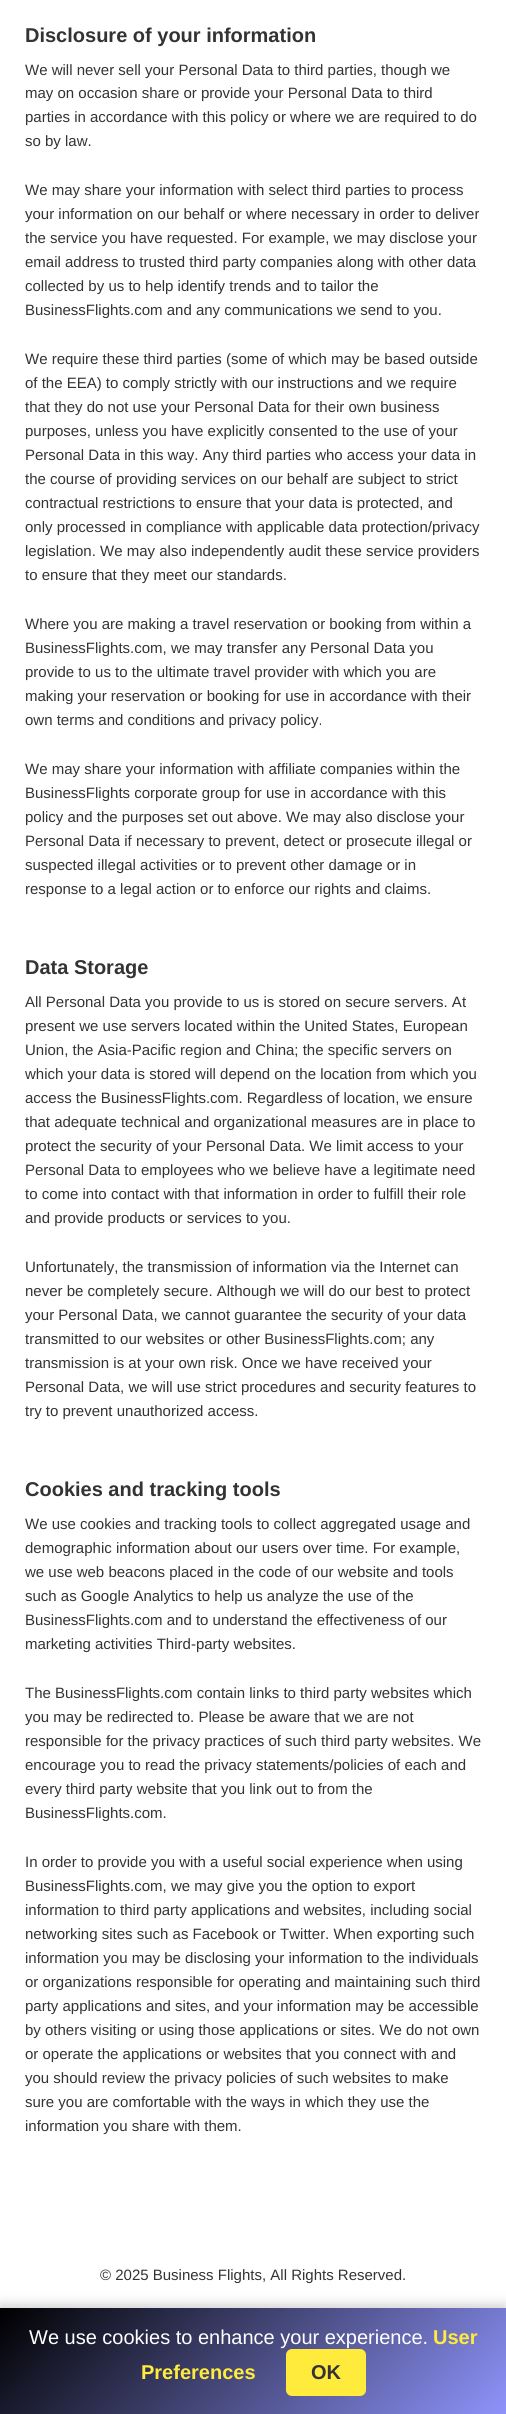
#include <cairo/cairo.h>
#include <math.h>
#include <stddef.h>

static cairo_t *cr;

static void use_color(int r, int g, int b) {
  cairo_set_source_rgb(cr, r / 255.0, g / 255.0, b / 255.0);
}

static void text(double x, double y, const char *s, const char *family, double size, int italic, int bold, int r, int g, int b) {
  cairo_select_font_face(cr, family, italic ? CAIRO_FONT_SLANT_ITALIC : CAIRO_FONT_SLANT_NORMAL,
    bold ? CAIRO_FONT_WEIGHT_BOLD : CAIRO_FONT_WEIGHT_NORMAL);
  cairo_set_font_size(cr, size);
  use_color(r, g, b);
  cairo_move_to(cr, x, y);
  cairo_show_text(cr, s);
}

static void round_rect(double x, double y, double w, double h, double r) {
  cairo_new_sub_path(cr);
  cairo_arc(cr, x + w - r, y + h - r, r, 0, M_PI / 2);
  cairo_arc(cr, x + r, y + h - r, r, M_PI / 2, M_PI);
  cairo_arc(cr, x + r, y + r, r, M_PI, 1.5 * M_PI);
  cairo_arc(cr, x + w - r, y + r, r, 1.5 * M_PI, 2 * M_PI);
  cairo_close_path(cr);
}

static void shadow(double x, double y, double w, double h, double r, double blur, double alpha) {
  cairo_push_group_with_content(cr, CAIRO_CONTENT_ALPHA);
  cairo_set_operator(cr, CAIRO_OPERATOR_SOURCE);
  for (int i = 15; i >= -15 && fmin(w, h) + blur * i / 3 > 0; i -= 2) {
    double e = blur * i / 6;
    cairo_set_source_rgba(cr, 0, 0, 0, alpha * erfc((i - 1) / 8.5) / 2);
    round_rect(x - e, y - e, w + 2 * e, h + 2 * e, fmax(0, fmin(r + e + blur * .6, fmin(w, h) / 2 + e)));
    cairo_fill(cr);
  }
  cairo_pattern_t *soft = cairo_pop_group(cr);
  cairo_mask(cr, soft);
  cairo_pattern_destroy(soft);
}

static void draw(void) {
  cairo_pattern_t *gradient;
  use_color(255, 255, 255);
  cairo_paint(cr);
  use_color(0, 0, 0);
  shadow(0, 2305, 506, 108, 0, 6, 0.2);
  gradient = cairo_pattern_create_linear(100, 2208, 407, 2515);
  cairo_pattern_add_color_stop_rgba(gradient, 0, 0, 0, 0, 1);
  cairo_pattern_add_color_stop_rgba(gradient, 1, 0.561, 0.58, 0.984, 1);
  cairo_set_source(cr, gradient);
  cairo_pattern_destroy(gradient);
  cairo_rectangle(cr, 0, 2308, 506, 106);
  cairo_fill(cr);
  use_color(255, 235, 59);
  round_rect(286, 2349, 80, 47, 6);
  cairo_fill(cr);
  text(25, 42, "Disclosure of your information", "Liberation Sans", 20, 0, 1, 51, 51, 51);
  text(25, 75, "We will never sell your Personal Data to third parties, though we", "Liberation Sans", 15, 0, 0, 51, 51, 51);
  text(25, 98, "may on occasion share or provide your Personal Data to third", "Liberation Sans", 15, 0, 0, 51, 51, 51);
  text(25, 122, "parties in accordance with this policy or where we are required to do", "Liberation Sans", 15, 0, 0, 51, 51, 51);
  text(25, 146, "so by law.", "Liberation Sans", 15, 0, 0, 51, 51, 51);
  text(25, 195, "We may share your information with select third parties to process", "Liberation Sans", 15, 0, 0, 51, 51, 51);
  text(25, 219, "your information on our behalf or where necessary in order to deliver", "Liberation Sans", 15, 0, 0, 51, 51, 51);
  text(25, 243, "the service you have requested. For example, we may disclose your", "Liberation Sans", 15, 0, 0, 51, 51, 51);
  text(25, 267, "email address to trusted third party companies along with other data", "Liberation Sans", 15, 0, 0, 51, 51, 51);
  text(25, 291, "collected by us to help identify trends and to tailor the", "Liberation Sans", 15, 0, 0, 51, 51, 51);
  text(25, 315, "BusinessFlights.com and any communications we send to you.", "Liberation Sans", 15, 0, 0, 51, 51, 51);
  text(25, 364, "We require these third parties (some of which may be based outside", "Liberation Sans", 15, 0, 0, 51, 51, 51);
  text(25, 388, "of the EEA) to comply strictly with our instructions and we require", "Liberation Sans", 15, 0, 0, 51, 51, 51);
  text(25, 412, "that they do not use your Personal Data for their own business", "Liberation Sans", 15, 0, 0, 51, 51, 51);
  text(25, 436, "purposes, unless you have explicitly consented to the use of your", "Liberation Sans", 15, 0, 0, 51, 51, 51);
  text(25, 460, "Personal Data in this way. Any third parties who access your data in", "Liberation Sans", 15, 0, 0, 51, 51, 51);
  text(25, 484, "the course of providing services on our behalf are subject to strict", "Liberation Sans", 15, 0, 0, 51, 51, 51);
  text(25, 508, "contractual restrictions to ensure that your data is protected, and", "Liberation Sans", 15, 0, 0, 51, 51, 51);
  text(25, 532, "only processed in compliance with applicable data protection/privacy", "Liberation Sans", 15, 0, 0, 51, 51, 51);
  text(25, 556, "legislation. We may also independently audit these service providers", "Liberation Sans", 15, 0, 0, 51, 51, 51);
  text(25, 580, "to ensure that they meet our standards.", "Liberation Sans", 15, 0, 0, 51, 51, 51);
  text(25, 629, "Where you are making a travel reservation or booking from within a", "Liberation Sans", 15, 0, 0, 51, 51, 51);
  text(25, 653, "BusinessFlights.com, we may transfer any Personal Data you", "Liberation Sans", 15, 0, 0, 51, 51, 51);
  text(25, 677, "provide to us to the ultimate travel provider with which you are", "Liberation Sans", 15, 0, 0, 51, 51, 51);
  text(25, 701, "making your reservation or booking for use in accordance with their", "Liberation Sans", 15, 0, 0, 51, 51, 51);
  text(25, 725, "own terms and conditions and privacy policy.", "Liberation Sans", 15, 0, 0, 51, 51, 51);
  text(25, 774, "We may share your information with affiliate companies within the", "Liberation Sans", 15, 0, 0, 51, 51, 51);
  text(25, 798, "BusinessFlights corporate group for use in accordance with this", "Liberation Sans", 15, 0, 0, 51, 51, 51);
  text(25, 822, "policy and the purposes set out above. We may also disclose your", "Liberation Sans", 15, 0, 0, 51, 51, 51);
  text(25, 846, "Personal Data if necessary to prevent, detect or prosecute illegal or", "Liberation Sans", 15, 0, 0, 51, 51, 51);
  text(25, 870, "suspected illegal activities or to prevent other damage or in", "Liberation Sans", 15, 0, 0, 51, 51, 51);
  text(25, 894, "response to a legal action or to enforce our rights and claims.", "Liberation Sans", 15, 0, 0, 51, 51, 51);
  text(25, 974, "Data Storage", "Liberation Sans", 20, 0, 1, 51, 51, 51);
  text(25, 1007, "All Personal Data you provide to us is stored on secure servers. At", "Liberation Sans", 15, 0, 0, 51, 51, 51);
  text(25, 1031, "present we use servers located within the United States, European", "Liberation Sans", 15, 0, 0, 51, 51, 51);
  text(25, 1055, "Union, the Asia-Pacific region and China; the specific servers on", "Liberation Sans", 15, 0, 0, 51, 51, 51);
  text(25, 1079, "which your data is stored will depend on the location from which you", "Liberation Sans", 15, 0, 0, 51, 51, 51);
  text(25, 1103, "access the BusinessFlights.com. Regardless of location, we ensure", "Liberation Sans", 15, 0, 0, 51, 51, 51);
  text(25, 1127, "that adequate technical and organizational measures are in place to", "Liberation Sans", 15, 0, 0, 51, 51, 51);
  text(25, 1151, "protect the security of your Personal Data. We limit access to your", "Liberation Sans", 15, 0, 0, 51, 51, 51);
  text(25, 1175, "Personal Data to employees who we believe have a legitimate need", "Liberation Sans", 15, 0, 0, 51, 51, 51);
  text(25, 1199, "to come into contact with that information in order to fulfill their role", "Liberation Sans", 15, 0, 0, 51, 51, 51);
  text(25, 1223, "and provide products or services to you.", "Liberation Sans", 15, 0, 0, 51, 51, 51);
  text(25, 1272, "Unfortunately, the transmission of information via the Internet can", "Liberation Sans", 15, 0, 0, 51, 51, 51);
  text(25, 1296, "never be completely secure. Although we will do our best to protect", "Liberation Sans", 15, 0, 0, 51, 51, 51);
  text(25, 1320, "your Personal Data, we cannot guarantee the security of your data", "Liberation Sans", 15, 0, 0, 51, 51, 51);
  text(25, 1344, "transmitted to our websites or other BusinessFlights.com; any", "Liberation Sans", 15, 0, 0, 51, 51, 51);
  text(25, 1368, "transmission is at your own risk. Once we have received your", "Liberation Sans", 15, 0, 0, 51, 51, 51);
  text(25, 1392, "Personal Data, we will use strict procedures and security features to", "Liberation Sans", 15, 0, 0, 51, 51, 51);
  text(25, 1416, "try to prevent unauthorized access.", "Liberation Sans", 15, 0, 0, 51, 51, 51);
  text(25, 1496, "Cookies and tracking tools", "Liberation Sans", 20, 0, 1, 51, 51, 51);
  text(25, 1529, "We use cookies and tracking tools to collect aggregated usage and", "Liberation Sans", 15, 0, 0, 51, 51, 51);
  text(25, 1553, "demographic information about our users over time. For example,", "Liberation Sans", 15, 0, 0, 51, 51, 51);
  text(25, 1577, "we use web beacons placed in the code of our website and tools", "Liberation Sans", 15, 0, 0, 51, 51, 51);
  text(25, 1601, "such as Google Analytics to help us analyze the use of the", "Liberation Sans", 15, 0, 0, 51, 51, 51);
  text(25, 1625, "BusinessFlights.com and to understand the effectiveness of our", "Liberation Sans", 15, 0, 0, 51, 51, 51);
  text(25, 1649, "marketing activities Third-party websites.", "Liberation Sans", 15, 0, 0, 51, 51, 51);
  text(25, 1698, "The BusinessFlights.com contain links to third party websites which", "Liberation Sans", 15, 0, 0, 51, 51, 51);
  text(25, 1722, "you may be redirected to. Please be aware that we are not", "Liberation Sans", 15, 0, 0, 51, 51, 51);
  text(25, 1746, "responsible for the privacy practices of such third party websites. We", "Liberation Sans", 15, 0, 0, 51, 51, 51);
  text(25, 1770, "encourage you to read the privacy statements/policies of each and", "Liberation Sans", 15, 0, 0, 51, 51, 51);
  text(25, 1794, "every third party website that you link out to from the", "Liberation Sans", 15, 0, 0, 51, 51, 51);
  text(25, 1818, "BusinessFlights.com.", "Liberation Sans", 15, 0, 0, 51, 51, 51);
  text(25, 1867, "In order to provide you with a useful social experience when using", "Liberation Sans", 15, 0, 0, 51, 51, 51);
  text(25, 1891, "BusinessFlights.com, we may give you the option to export", "Liberation Sans", 15, 0, 0, 51, 51, 51);
  text(25, 1915, "information to third party applications and websites, including social", "Liberation Sans", 15, 0, 0, 51, 51, 51);
  text(25, 1939, "networking sites such as Facebook or Twitter. When exporting such", "Liberation Sans", 15, 0, 0, 51, 51, 51);
  text(25, 1963, "information you may be disclosing your information to the individuals", "Liberation Sans", 15, 0, 0, 51, 51, 51);
  text(25, 1987, "or organizations responsible for operating and maintaining such third", "Liberation Sans", 15, 0, 0, 51, 51, 51);
  text(25, 2011, "party applications and sites, and your information may be accessible", "Liberation Sans", 15, 0, 0, 51, 51, 51);
  text(25, 2035, "by others visiting or using those applications or sites. We do not own", "Liberation Sans", 15, 0, 0, 51, 51, 51);
  text(25, 2059, "or operate the applications or websites that you connect with and", "Liberation Sans", 15, 0, 0, 51, 51, 51);
  text(25, 2083, "you should review the privacy policies of such websites to make", "Liberation Sans", 15, 0, 0, 51, 51, 51);
  text(25, 2107, "sure you are comfortable with the ways in which they use the", "Liberation Sans", 15, 0, 0, 51, 51, 51);
  text(25, 2131, "information you share with them.", "Liberation Sans", 15, 0, 0, 51, 51, 51);
  text(100, 2280, "© 2025 Business Flights, All Rights Reserved.", "Liberation Sans", 15, 0, 0, 51, 51, 51);
  text(29, 2344, "We use cookies to enhance your experience.", "Liberation Sans", 20, 0, 0, 255, 255, 255);
  text(433, 2344, "User", "Liberation Sans", 20, 0, 1, 255, 235, 59);
  text(141, 2379, "Preferences", "Liberation Sans", 20, 0, 1, 255, 235, 59);
  text(311, 2379, "OK", "Liberation Sans", 20, 0, 1, 51, 51, 51);
}

int main(void) {
  cairo_surface_t *surface = cairo_image_surface_create(CAIRO_FORMAT_RGB24, 506, 2414);
  cr = cairo_create(surface);
  cairo_font_options_t *options = cairo_font_options_create();
  cairo_font_options_set_hint_metrics(options, CAIRO_HINT_METRICS_OFF);
  cairo_font_options_set_hint_style(options, CAIRO_HINT_STYLE_NONE);
  cairo_set_font_options(cr, options);
  cairo_set_miter_limit(cr, 4);
  draw();
  cairo_surface_write_to_png(surface, "out.png");
  cairo_font_options_destroy(options);
  cairo_destroy(cr);
  cairo_surface_destroy(surface);
  return 0;
}
